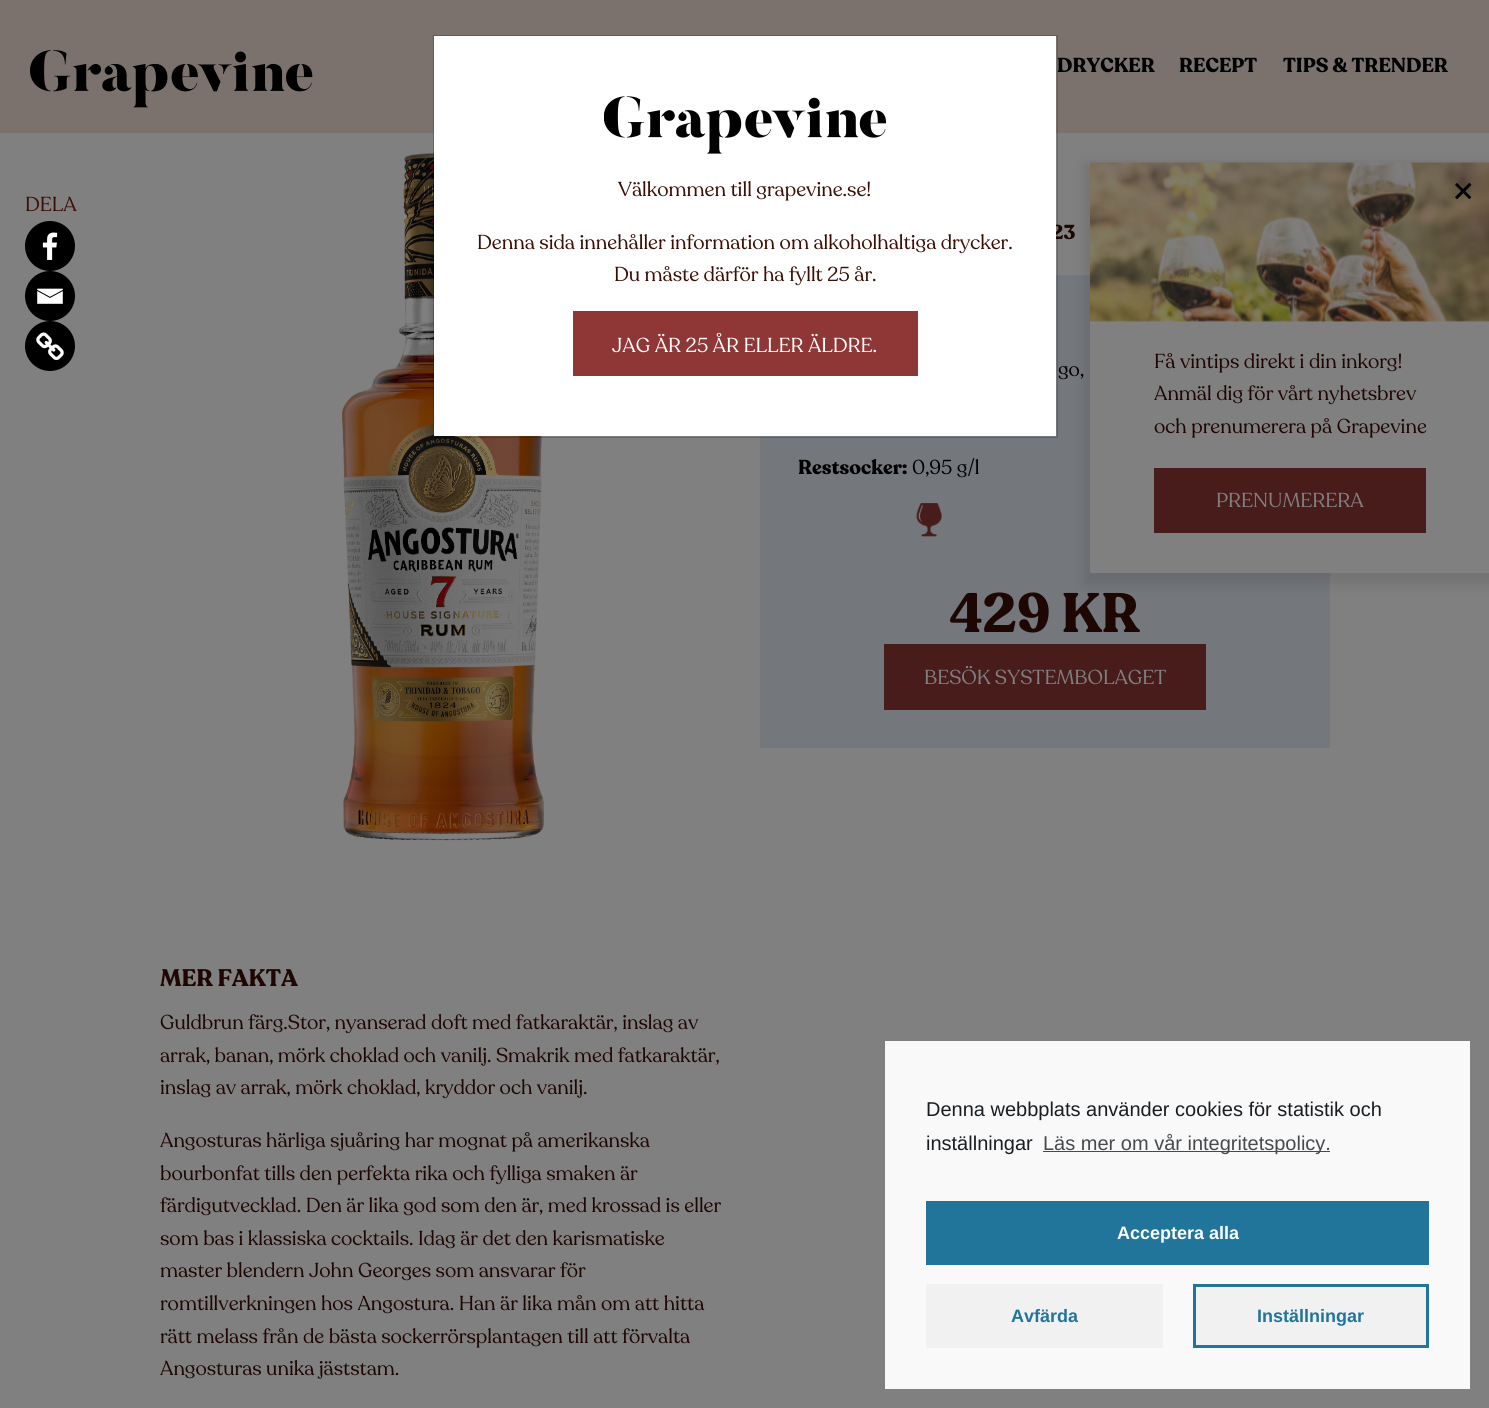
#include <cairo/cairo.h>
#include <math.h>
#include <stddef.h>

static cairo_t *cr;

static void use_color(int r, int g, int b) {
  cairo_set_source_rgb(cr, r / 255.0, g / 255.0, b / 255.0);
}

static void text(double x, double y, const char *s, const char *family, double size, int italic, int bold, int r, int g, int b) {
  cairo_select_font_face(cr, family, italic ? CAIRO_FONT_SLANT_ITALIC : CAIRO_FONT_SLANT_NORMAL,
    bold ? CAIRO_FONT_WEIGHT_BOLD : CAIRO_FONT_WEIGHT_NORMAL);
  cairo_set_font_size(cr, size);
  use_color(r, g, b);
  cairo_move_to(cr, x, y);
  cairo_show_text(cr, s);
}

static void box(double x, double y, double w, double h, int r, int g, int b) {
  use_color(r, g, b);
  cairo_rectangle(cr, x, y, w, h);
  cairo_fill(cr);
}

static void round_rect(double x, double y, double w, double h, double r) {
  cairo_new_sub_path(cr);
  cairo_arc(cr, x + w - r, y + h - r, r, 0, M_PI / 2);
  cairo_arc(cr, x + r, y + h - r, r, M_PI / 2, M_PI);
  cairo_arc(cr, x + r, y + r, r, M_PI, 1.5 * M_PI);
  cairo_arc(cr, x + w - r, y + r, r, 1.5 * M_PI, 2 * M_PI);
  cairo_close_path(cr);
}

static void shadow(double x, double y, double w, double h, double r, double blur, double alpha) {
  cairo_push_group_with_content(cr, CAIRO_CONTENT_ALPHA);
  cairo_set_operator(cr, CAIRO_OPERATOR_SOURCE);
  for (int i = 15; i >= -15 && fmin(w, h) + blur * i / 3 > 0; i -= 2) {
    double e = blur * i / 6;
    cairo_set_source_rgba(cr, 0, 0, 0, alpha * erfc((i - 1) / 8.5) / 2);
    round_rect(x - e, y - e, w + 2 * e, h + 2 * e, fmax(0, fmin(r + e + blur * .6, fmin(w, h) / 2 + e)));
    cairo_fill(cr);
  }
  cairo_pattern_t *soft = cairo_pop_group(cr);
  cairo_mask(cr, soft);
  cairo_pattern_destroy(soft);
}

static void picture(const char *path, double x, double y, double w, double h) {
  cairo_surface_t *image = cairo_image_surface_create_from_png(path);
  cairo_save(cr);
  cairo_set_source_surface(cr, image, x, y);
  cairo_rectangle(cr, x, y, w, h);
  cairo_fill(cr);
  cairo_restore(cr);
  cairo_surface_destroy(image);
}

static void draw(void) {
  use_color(128, 128, 128);
  cairo_paint(cr);
  box(0, 0, 1489, 133, 123, 114, 110);
  picture("img_01.png", 30, 50, 283, 58);
  box(760, 275, 570, 473, 116, 119, 124);
  use_color(0, 0, 0);
  shadow(1084, 163, 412, 422, 0, 6, 0.1);
  box(1090, 320, 399, 253, 128, 128, 128);
  picture("img_03.png", 1090, 162, 399, 160);
  box(1154, 468, 272, 65, 71, 28, 27);
  picture("img_04.png", 342, 152, 202, 689);
  use_color(0, 0, 0);
  cairo_arc(cr, 50, 246, 25, 0, 2 * M_PI);
  cairo_fill(cr);
  picture("img_05.png", 42, 232, 16, 28);
  cairo_arc(cr, 50, 296, 25, 0, 2 * M_PI);
  cairo_fill(cr);
  picture("img_06.png", 37, 288, 26, 16);
  cairo_arc(cr, 50, 346, 25, 0, 2 * M_PI);
  cairo_fill(cr);
  picture("img_07.png", 36, 332, 28, 28);
  picture("img_08.png", 916, 503, 26, 34);
  box(884, 644, 322, 66, 71, 28, 27);
  box(885, 1041, 585, 348, 249, 249, 249);
  box(1043, 1151, 287, 1, 70, 74, 78);
  box(926, 1201, 503, 64, 33, 117, 155);
  box(926, 1284, 237, 64, 241, 241, 241);
  cairo_rectangle(cr, 1194.5, 1285.5, 233, 61);
  cairo_fill_preserve(cr);
  use_color(33, 117, 155);
  cairo_set_line_width(cr, 3);
  cairo_stroke(cr);
  text(1057, 72, "DRYCKER", "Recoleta", 20, 0, 1, 0, 0, 0);
  text(1179, 72, "RECEPT", "Recoleta", 20, 0, 1, 0, 0, 0);
  text(1283, 72, "TIPS & TRENDER", "Recoleta", 20, 0, 1, 0, 0, 0);
  cairo_save(cr);
  cairo_translate(cr, 1443, 190);
  cairo_rotate(cr, 45 * M_PI / 180);
  text(0, 0, "+", "Recoleta", 50, 0, 0, 0, 0, 0);
  cairo_restore(cr);
  text(1154, 368, "Få vintips direkt i din inkorg!", "Recoleta", 20, 0, 0, 30, 7, 3);
  text(1154, 400, "Anmäl dig för vårt nyhetsbrev", "Recoleta", 20, 0, 0, 30, 7, 3);
  text(1154, 433, "och prenumerera på Grapevine", "Recoleta", 20, 0, 0, 30, 7, 3);
  text(1216, 507, "PRENUMERERA", "Recoleta", 20, 0, 0, 128, 128, 128);
  text(25, 211, "DELA", "Recoleta", 20, 0, 0, 60, 14, 5);
  text(1051, 239, "23", "Recoleta", 20, 0, 1, 30, 7, 3);
  box(434, 36, 622, 400, 255, 255, 255);
  cairo_rectangle(cr, 433.5, 35.5, 624, 402);
  cairo_set_source_rgba(cr, 0, 0, 0, 0.2);
  cairo_set_line_width(cr, 1);
  cairo_stroke(cr);
  picture("img_02.png", 604, 96, 282, 58);
  box(573, 311, 345, 65, 142, 55, 54);
  text(612, 352, "JAG ÄR 25 ÅR ELLER ÄLDRE.", "Recoleta", 20, 0, 0, 255, 255, 255);
  text(614, 281, "Du måste därför ha fyllt 25 år.", "Recoleta", 20, 0, 0, 60, 14, 5);
  text(477, 249, "Denna sida innehåller information om alkoholhaltiga drycker.", "Recoleta", 20, 0, 0, 60, 14, 5);
  text(618, 196, "Välkommen till grapevine.se!", "Recoleta", 20, 0, 0, 60, 14, 5);
  text(1058, 376, "go,", "Recoleta", 20, 0, 0, 0, 0, 0);
  text(798, 474, "Restsocker:", "Recoleta", 20, 0, 1, 0, 0, 0);
  text(912, 474, "0,95 g/l", "Recoleta", 20, 0, 0, 0, 0, 0);
  text(950, 632, "429 KR", "Recoleta", 55, 0, 1, 30, 7, 3);
  text(924, 684, "BESÖK SYSTEMBOLAGET", "Recoleta", 20, 0, 0, 128, 128, 128);
  text(160, 986, "MER FAKTA", "Recoleta", 23.75, 0, 1, 30, 7, 3);
  text(160, 1029, "Guldbrun färg.Stor, nyanserad doft med fatkaraktär, inslag av", "Recoleta", 20, 0, 0, 30, 7, 3);
  text(160, 1062, "arrak, banan, mörk choklad och vanilj. Smakrik med fatkaraktär,", "Recoleta", 20, 0, 0, 30, 7, 3);
  text(160, 1094, "inslag av arrak, mörk choklad, kryddor och vanilj.", "Recoleta", 20, 0, 0, 30, 7, 3);
  text(160, 1147, "Angosturas härliga sjuåring har mognat på amerikanska", "Recoleta", 20, 0, 0, 30, 7, 3);
  text(160, 1180, "bourbonfat tills den perfekta rika och fylliga smaken är", "Recoleta", 20, 0, 0, 30, 7, 3);
  text(160, 1212, "färdigutvecklad. Den är lika god som den är, med krossad is eller", "Recoleta", 20, 0, 0, 30, 7, 3);
  text(160, 1245, "som bas i klassiska cocktails. Idag är det den karismatiske", "Recoleta", 20, 0, 0, 30, 7, 3);
  text(160, 1277, "master blendern John Georges som ansvarar för", "Recoleta", 20, 0, 0, 30, 7, 3);
  text(160, 1310, "romtillverkningen hos Angostura. Han är lika mån om att hitta", "Recoleta", 20, 0, 0, 30, 7, 3);
  text(160, 1343, "rätt melass från de bästa sockerrörsplantagen till att förvalta", "Recoleta", 20, 0, 0, 30, 7, 3);
  text(160, 1375, "Angosturas unika jäststam.", "Recoleta", 20, 0, 0, 30, 7, 3);
  text(926, 1116, "Denna webbplats använder cookies för statistik och", "Liberation Sans", 20, 0, 0, 25, 30, 35);
  text(926, 1150, "inställningar", "Liberation Sans", 20, 0, 0, 25, 30, 35);
  text(1043, 1150, "Läs mer om vår integritetspolicy.", "Liberation Sans", 20, 0, 0, 70, 74, 78);
  text(1117, 1239, "Acceptera alla", "Liberation Sans", 18, 0, 1, 255, 255, 255);
  text(1011, 1322, "Avfärda", "Liberation Sans", 18, 0, 1, 33, 117, 155);
  text(1257, 1322, "Inställningar", "Liberation Sans", 18, 0, 1, 33, 117, 155);
}

int main(void) {
  cairo_surface_t *surface = cairo_image_surface_create(CAIRO_FORMAT_RGB24, 1489, 1408);
  cr = cairo_create(surface);
  cairo_font_options_t *options = cairo_font_options_create();
  cairo_font_options_set_hint_metrics(options, CAIRO_HINT_METRICS_OFF);
  cairo_font_options_set_hint_style(options, CAIRO_HINT_STYLE_NONE);
  cairo_set_font_options(cr, options);
  cairo_set_miter_limit(cr, 4);
  draw();
  cairo_surface_write_to_png(surface, "out.png");
  cairo_font_options_destroy(options);
  cairo_destroy(cr);
  cairo_surface_destroy(surface);
  return 0;
}
